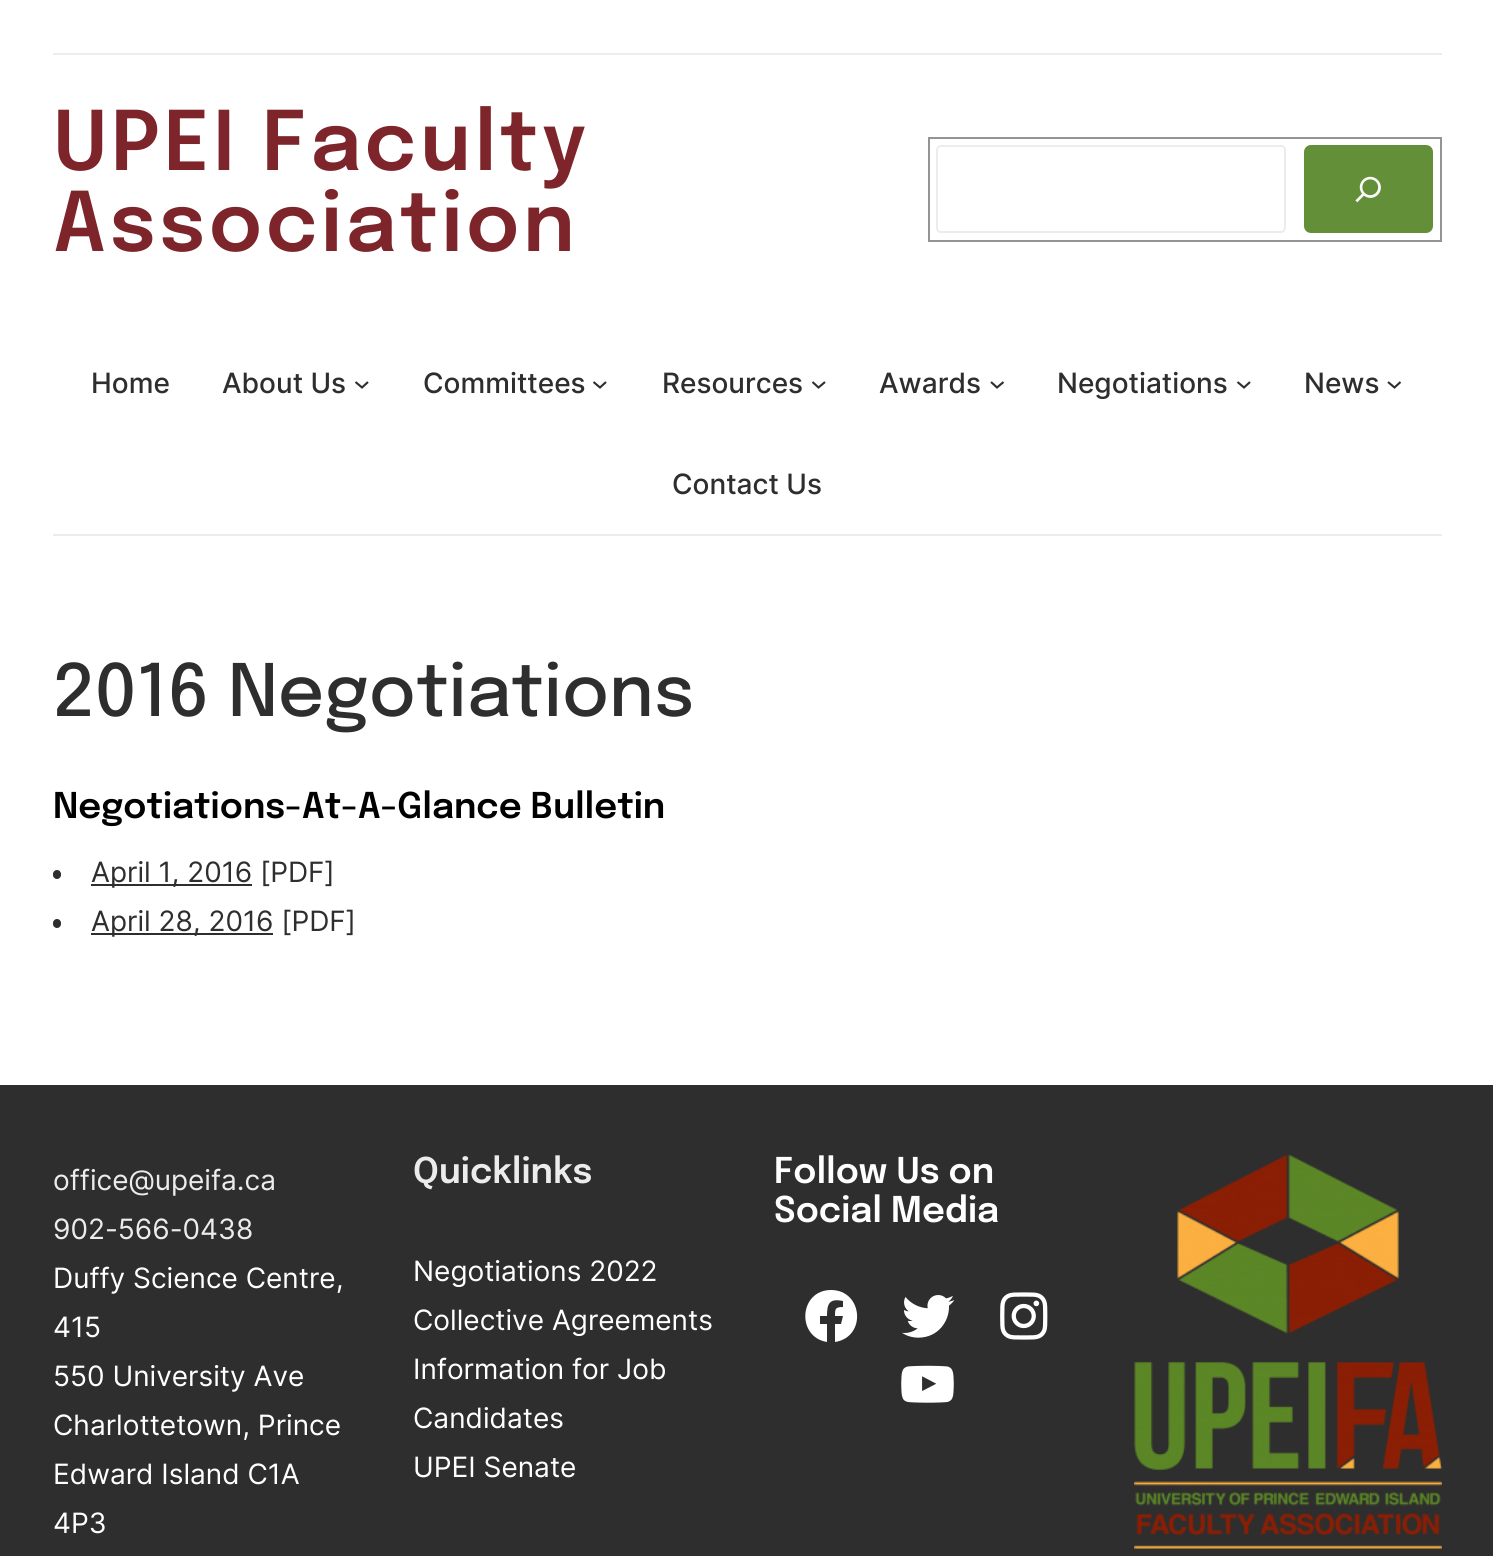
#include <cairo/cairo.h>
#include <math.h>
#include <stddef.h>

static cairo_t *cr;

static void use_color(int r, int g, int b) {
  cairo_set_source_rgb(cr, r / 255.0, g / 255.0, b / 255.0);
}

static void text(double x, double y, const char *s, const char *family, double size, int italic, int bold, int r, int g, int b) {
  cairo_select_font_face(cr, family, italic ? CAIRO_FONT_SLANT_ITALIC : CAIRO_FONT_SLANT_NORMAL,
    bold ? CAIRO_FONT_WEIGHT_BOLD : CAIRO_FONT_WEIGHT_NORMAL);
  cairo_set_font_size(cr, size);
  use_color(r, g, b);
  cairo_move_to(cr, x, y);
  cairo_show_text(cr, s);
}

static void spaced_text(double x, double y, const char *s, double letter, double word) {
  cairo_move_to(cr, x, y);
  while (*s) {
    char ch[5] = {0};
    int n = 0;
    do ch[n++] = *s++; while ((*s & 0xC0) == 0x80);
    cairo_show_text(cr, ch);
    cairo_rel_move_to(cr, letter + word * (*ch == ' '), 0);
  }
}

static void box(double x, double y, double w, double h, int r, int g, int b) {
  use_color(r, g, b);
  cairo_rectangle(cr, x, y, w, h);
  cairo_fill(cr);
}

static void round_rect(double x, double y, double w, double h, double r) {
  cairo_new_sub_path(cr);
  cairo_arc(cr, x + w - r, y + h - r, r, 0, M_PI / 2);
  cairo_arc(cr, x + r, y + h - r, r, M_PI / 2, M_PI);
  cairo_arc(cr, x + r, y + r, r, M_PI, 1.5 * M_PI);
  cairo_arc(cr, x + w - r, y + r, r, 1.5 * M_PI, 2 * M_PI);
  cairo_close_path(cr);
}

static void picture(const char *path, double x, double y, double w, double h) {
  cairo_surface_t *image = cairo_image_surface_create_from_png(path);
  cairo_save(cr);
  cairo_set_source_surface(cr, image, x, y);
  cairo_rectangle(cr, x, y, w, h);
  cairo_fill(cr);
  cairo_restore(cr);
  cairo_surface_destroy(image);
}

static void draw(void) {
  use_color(255, 255, 255);
  cairo_paint(cr);
  box(53, 53, 1389, 2, 236, 236, 236);
  cairo_rectangle(cr, 929, 138, 512, 103);
  use_color(148, 148, 148);
  cairo_stroke(cr);
  round_rect(937, 146, 348, 86, 4);
  use_color(236, 236, 236);
  cairo_stroke(cr);
  use_color(99, 143, 56);
  round_rect(1304, 145, 129, 88, 7);
  cairo_fill(cr);
  picture("img_01.png", 1355, 176, 26, 27);
  cairo_new_path(cr);
  cairo_move_to(cr, 355.5, 382);
  cairo_line_to(cr, 362, 387.5);
  cairo_line_to(cr, 368, 382);
  use_color(46, 46, 46);
  cairo_set_line_width(cr, 2.1);
  cairo_stroke(cr);
  cairo_new_path(cr);
  cairo_move_to(cr, 593.5, 382);
  cairo_line_to(cr, 600, 387.5);
  cairo_line_to(cr, 606, 382);
  cairo_stroke(cr);
  cairo_new_path(cr);
  cairo_move_to(cr, 812.5, 382);
  cairo_line_to(cr, 818.5, 387.5);
  cairo_line_to(cr, 825, 382);
  cairo_stroke(cr);
  cairo_new_path(cr);
  cairo_move_to(cr, 991, 382);
  cairo_line_to(cr, 997, 387.5);
  cairo_line_to(cr, 1003.5, 382);
  cairo_stroke(cr);
  cairo_new_path(cr);
  cairo_move_to(cr, 1237.5, 382);
  cairo_line_to(cr, 1244, 387.5);
  cairo_line_to(cr, 1250, 382);
  cairo_stroke(cr);
  cairo_new_path(cr);
  cairo_move_to(cr, 1388, 382);
  cairo_line_to(cr, 1394.5, 387.5);
  cairo_line_to(cr, 1400.5, 382);
  cairo_stroke(cr);
  box(53, 534, 1389, 2, 236, 236, 236);
  use_color(46, 46, 46);
  round_rect(53, 870, 8, 9, 4);
  cairo_fill(cr);
  box(91, 884, 161, 2, 46, 46, 46);
  round_rect(53, 919, 8, 9, 4);
  cairo_fill(cr);
  box(91, 933, 182, 2, 46, 46, 46);
  box(0, 1085, 1493, 471, 46, 46, 46);
  use_color(255, 255, 255);
  cairo_new_path(cr);
  cairo_move_to(cr, 831, 1290);
  cairo_curve_to(cr, 799, 1290, 796, 1337, 827, 1342);
  cairo_line_to(cr, 827, 1324);
  cairo_line_to(cr, 820, 1324);
  cairo_line_to(cr, 820, 1316);
  cairo_line_to(cr, 827, 1316);
  cairo_curve_to(cr, 827, 1304, 829, 1298, 843, 1301);
  cairo_line_to(cr, 843, 1307);
  cairo_curve_to(cr, 835, 1307, 835, 1309, 835, 1316);
  cairo_line_to(cr, 843, 1316);
  cairo_line_to(cr, 841, 1324);
  cairo_line_to(cr, 835, 1324);
  cairo_line_to(cr, 835, 1342);
  cairo_curve_to(cr, 867, 1337, 863, 1290, 831, 1290);
  cairo_close_path(cr);
  cairo_fill(cr);
  picture("img_02.png", 902, 1295, 53, 43);
  picture("img_03.png", 1000, 1292, 48, 48);
  picture("img_04.png", 901, 1365, 53, 38);
  picture("img_05.png", 1134, 1154, 308, 395);
  cairo_select_font_face(cr, "Epilogue SemiBold", CAIRO_FONT_SLANT_NORMAL, CAIRO_FONT_WEIGHT_NORMAL);
  cairo_set_font_size(cr, 81.75);
  use_color(125, 37, 42);
  spaced_text(53, 170, "UPEI Faculty", 3.5, 0);
  spaced_text(53, 251, "Association", 3.5, 0);
  text(91, 393, "Home", "Inter Medium", 28, 0, 0, 46, 46, 46);
  text(222, 393, "About Us", "Inter Medium", 28, 0, 0, 46, 46, 46);
  text(423, 393, "Committees", "Inter Medium", 28, 0, 0, 46, 46, 46);
  text(662, 393, "Resources", "Inter Medium", 28, 0, 0, 46, 46, 46);
  text(879, 393, "Awards", "Inter Medium", 28, 0, 0, 46, 46, 46);
  text(1057, 393, "Negotiations", "Inter Medium", 28, 0, 0, 46, 46, 46);
  text(1304, 393, "News", "Inter Medium", 28, 0, 0, 46, 46, 46);
  text(672, 494, "Contact Us", "Inter Medium", 28, 0, 0, 46, 46, 46);
  text(53, 716, "2016 Negotiations", "Epilogue Medium", 72, 0, 0, 46, 46, 46);
  text(53, 818, "Negotiations-At-A-Glance Bulletin", "Epilogue SemiBold", 35.4, 0, 0, 0, 0, 0);
  text(91, 882, "April 1, 2016 [PDF]", "Inter", 28, 0, 0, 46, 46, 46);
  text(91, 931, "April 28, 2016 [PDF]", "Inter", 28, 0, 0, 46, 46, 46);
  text(53, 1190, "office@upeifa.ca", "Inter", 28, 0, 0, 236, 236, 236);
  text(53, 1239, "902-566-0438", "Inter", 28, 0, 0, 236, 236, 236);
  text(53, 1288, "Duffy Science Centre,", "Inter", 28, 0, 0, 255, 255, 255);
  text(53, 1337, "415", "Inter", 28, 0, 0, 255, 255, 255);
  text(53, 1386, "550 University Ave", "Inter", 28, 0, 0, 255, 255, 255);
  text(53, 1435, "Charlottetown, Prince", "Inter", 28, 0, 0, 255, 255, 255);
  text(53, 1484, "Edward Island C1A", "Inter", 28, 0, 0, 255, 255, 255);
  text(53, 1533, "4P3", "Inter", 28, 0, 0, 255, 255, 255);
  text(413, 1183, "Quicklinks", "Epilogue SemiBold", 35.4, 0, 0, 236, 236, 236);
  text(413, 1281, "Negotiations 2022", "Inter", 28, 0, 0, 255, 255, 255);
  text(413, 1330, "Collective Agreements", "Inter", 28, 0, 0, 255, 255, 255);
  text(413, 1379, "Information for Job", "Inter", 28, 0, 0, 255, 255, 255);
  text(413, 1428, "Candidates", "Inter", 28, 0, 0, 255, 255, 255);
  text(413, 1477, "UPEI Senate", "Inter", 28, 0, 0, 255, 255, 255);
  text(774, 1183, "Follow Us on", "Epilogue SemiBold", 35.4, 0, 0, 255, 255, 255);
  text(774, 1222, "Social Media", "Epilogue SemiBold", 35.4, 0, 0, 255, 255, 255);
}

int main(void) {
  cairo_surface_t *surface = cairo_image_surface_create(CAIRO_FORMAT_RGB24, 1493, 1556);
  cr = cairo_create(surface);
  cairo_font_options_t *options = cairo_font_options_create();
  cairo_font_options_set_hint_metrics(options, CAIRO_HINT_METRICS_OFF);
  cairo_font_options_set_hint_style(options, CAIRO_HINT_STYLE_NONE);
  cairo_set_font_options(cr, options);
  cairo_set_miter_limit(cr, 4);
  draw();
  cairo_surface_write_to_png(surface, "out.png");
  cairo_font_options_destroy(options);
  cairo_destroy(cr);
  cairo_surface_destroy(surface);
  return 0;
}
